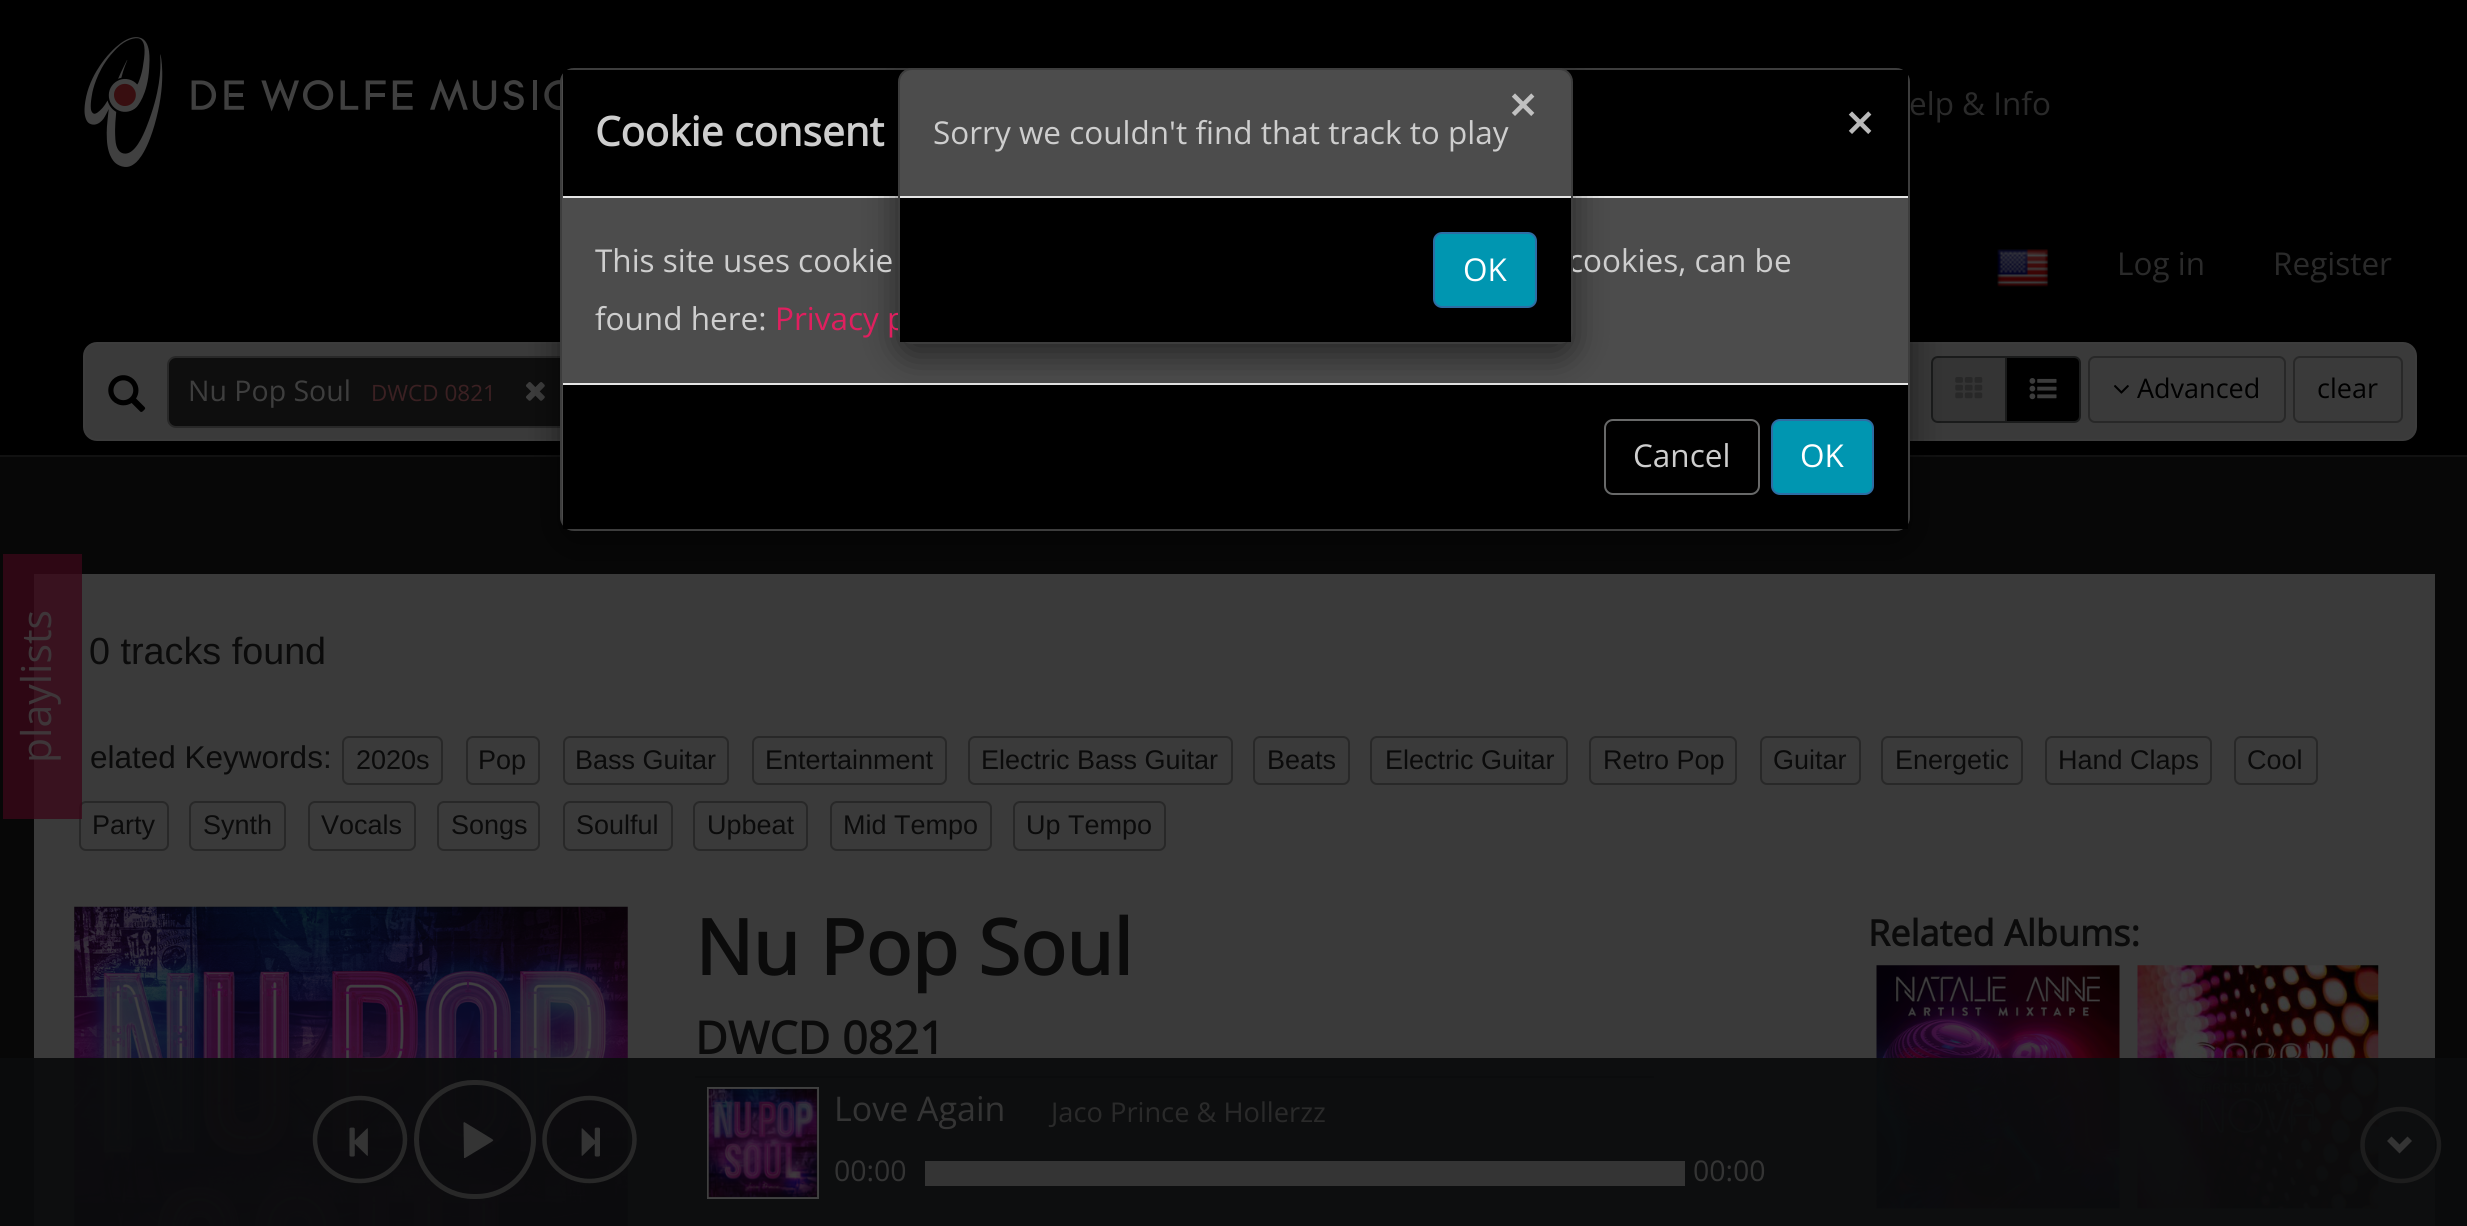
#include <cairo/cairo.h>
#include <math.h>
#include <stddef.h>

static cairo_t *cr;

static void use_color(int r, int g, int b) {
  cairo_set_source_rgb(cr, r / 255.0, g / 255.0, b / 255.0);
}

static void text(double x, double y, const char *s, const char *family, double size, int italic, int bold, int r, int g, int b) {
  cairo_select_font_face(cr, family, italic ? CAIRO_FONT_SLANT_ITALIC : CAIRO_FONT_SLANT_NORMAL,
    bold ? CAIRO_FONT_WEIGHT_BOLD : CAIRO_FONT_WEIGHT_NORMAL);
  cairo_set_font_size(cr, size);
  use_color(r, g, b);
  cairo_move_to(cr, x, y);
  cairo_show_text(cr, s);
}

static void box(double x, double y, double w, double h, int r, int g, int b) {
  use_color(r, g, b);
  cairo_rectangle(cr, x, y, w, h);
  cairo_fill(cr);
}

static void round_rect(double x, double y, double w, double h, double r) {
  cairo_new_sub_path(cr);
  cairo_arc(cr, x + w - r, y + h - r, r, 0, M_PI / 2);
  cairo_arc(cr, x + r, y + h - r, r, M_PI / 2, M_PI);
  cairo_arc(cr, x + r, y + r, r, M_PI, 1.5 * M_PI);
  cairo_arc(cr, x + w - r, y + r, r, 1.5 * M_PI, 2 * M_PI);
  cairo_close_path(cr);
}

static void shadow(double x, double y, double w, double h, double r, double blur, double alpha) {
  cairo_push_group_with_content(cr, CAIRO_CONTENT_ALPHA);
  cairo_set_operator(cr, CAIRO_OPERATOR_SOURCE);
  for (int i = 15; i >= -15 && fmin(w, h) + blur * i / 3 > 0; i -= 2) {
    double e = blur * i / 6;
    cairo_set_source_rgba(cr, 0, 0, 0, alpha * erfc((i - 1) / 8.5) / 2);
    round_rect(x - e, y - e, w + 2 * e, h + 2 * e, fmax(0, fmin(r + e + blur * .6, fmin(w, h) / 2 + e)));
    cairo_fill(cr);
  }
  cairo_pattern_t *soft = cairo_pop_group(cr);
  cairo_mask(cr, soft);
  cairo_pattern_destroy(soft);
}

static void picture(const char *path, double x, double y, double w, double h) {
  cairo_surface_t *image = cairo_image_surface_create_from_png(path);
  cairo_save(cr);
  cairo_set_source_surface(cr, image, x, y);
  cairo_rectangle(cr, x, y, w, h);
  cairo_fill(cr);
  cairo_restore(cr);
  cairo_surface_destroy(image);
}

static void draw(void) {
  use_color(7, 7, 7);
  cairo_paint(cr);
  box(0, 0, 2467, 455, 0, 0, 0);
  box(0, 455, 2467, 2, 17, 17, 17);
  picture("img_01.png", 84, 37, 477, 130);
  picture("img_02.png", 1997, 249, 52, 38);
  use_color(58, 58, 58);
  round_rect(84, 343, 2332, 97, 13);
  cairo_fill_preserve(cr);
  use_color(60, 60, 60);
  cairo_stroke(cr);
  picture("img_03.png", 108, 375, 38, 37);
  use_color(14, 14, 14);
  round_rect(168, 357, 400, 70, 8);
  cairo_fill_preserve(cr);
  use_color(40, 40, 40);
  cairo_stroke(cr);
  picture("img_04.png", 526, 382, 19, 19);
  use_color(52, 52, 52);
  cairo_new_path(cr);
  cairo_move_to(cr, 1938, 357);
  cairo_line_to(cr, 2006, 357);
  cairo_line_to(cr, 2006, 422);
  cairo_line_to(cr, 1938, 422);
  cairo_curve_to(cr, 1934.5, 422, 1932, 419.5, 1932, 416);
  cairo_line_to(cr, 1932, 363);
  cairo_curve_to(cr, 1932, 359.5, 1934.5, 357, 1938, 357);
  cairo_close_path(cr);
  cairo_fill_preserve(cr);
  use_color(26, 27, 27);
  cairo_stroke(cr);
  picture("img_05.png", 1955, 377, 28, 22);
  use_color(0, 0, 0);
  cairo_new_path(cr);
  cairo_move_to(cr, 2006, 357);
  cairo_line_to(cr, 2074, 357);
  cairo_curve_to(cr, 2077.5, 357, 2080, 359.5, 2080, 363);
  cairo_line_to(cr, 2080, 416);
  cairo_curve_to(cr, 2080, 419.5, 2077.5, 422, 2074, 422);
  cairo_line_to(cr, 2006, 422);
  cairo_close_path(cr);
  cairo_fill_preserve(cr);
  use_color(26, 27, 27);
  cairo_stroke(cr);
  picture("img_06.png", 2029, 378, 28, 22);
  round_rect(2089, 357, 196, 65, 6);
  use_color(40, 40, 40);
  cairo_stroke(cr);
  picture("img_07.png", 2114, 385, 15, 9);
  round_rect(2294, 357, 108, 65, 6);
  cairo_stroke(cr);
  box(34, 574, 2401, 652, 58, 58, 58);
  use_color(0, 0, 0);
  shadow(560, 79, 1350, 463, 14, 17, 0.5);
  use_color(76, 76, 76);
  round_rect(560, 68, 1350, 463, 14);
  cairo_fill(cr);
  round_rect(561, 69, 1348, 461, 13);
  cairo_set_source_rgba(cr, 0, 0, 0, 0.2);
  cairo_stroke(cr);
  box(563, 70, 1345, 126, 0, 0, 0);
  box(563, 196, 1345, 2, 229, 229, 229);
  box(563, 385, 1345, 144, 0, 0, 0);
  box(563, 383, 1345, 2, 229, 229, 229);
  use_color(0, 0, 0);
  shadow(898, 79, 675, 277, 14, 17, 0.5);
  round_rect(1605, 420, 154, 74, 8);
  use_color(104, 105, 105);
  cairo_stroke(cr);
  use_color(0, 150, 177);
  round_rect(1772, 420, 101, 74, 8);
  cairo_fill_preserve(cr);
  use_color(46, 109, 164);
  cairo_stroke(cr);
  round_rect(80, 802, 88, 48, 6);
  use_color(40, 40, 40);
  cairo_stroke(cr);
  cairo_set_source_rgba(cr, 0.22, 0.031, 0.094, 0.8);
  cairo_rectangle(cr, 3, 554, 79, 265);
  cairo_fill(cr);
  round_rect(343, 737, 99, 47, 6);
  use_color(40, 40, 40);
  cairo_stroke(cr);
  round_rect(467, 737, 72, 47, 6);
  cairo_stroke(cr);
  round_rect(564, 737, 164, 47, 6);
  cairo_stroke(cr);
  round_rect(753, 737, 193, 47, 6);
  cairo_stroke(cr);
  round_rect(969, 737, 263, 47, 6);
  cairo_stroke(cr);
  round_rect(1254, 737, 95, 47, 6);
  cairo_stroke(cr);
  round_rect(1371, 737, 196, 47, 6);
  cairo_stroke(cr);
  round_rect(1590, 737, 146, 47, 6);
  cairo_stroke(cr);
  round_rect(1761, 737, 99, 47, 6);
  cairo_stroke(cr);
  round_rect(1882, 737, 140, 47, 6);
  cairo_stroke(cr);
  round_rect(2046, 737, 165, 47, 6);
  cairo_stroke(cr);
  round_rect(2235, 737, 82, 47, 6);
  cairo_stroke(cr);
  round_rect(190, 802, 95, 48, 6);
  cairo_stroke(cr);
  round_rect(309, 802, 106, 48, 6);
  cairo_stroke(cr);
  round_rect(438, 802, 101, 48, 6);
  cairo_stroke(cr);
  round_rect(564, 802, 108, 48, 6);
  cairo_stroke(cr);
  round_rect(694, 802, 113, 48, 6);
  cairo_stroke(cr);
  round_rect(831, 802, 160, 48, 6);
  cairo_stroke(cr);
  round_rect(1014, 802, 151, 48, 6);
  cairo_stroke(cr);
  picture("img_08.png", 74, 906, 554, 320);
  box(695, 1076, 959, 2, 11, 11, 11);
  picture("img_09.png", 1876, 965, 244, 244);
  picture("img_10.png", 2137, 965, 242, 244);
  cairo_set_source_rgba(cr, 0.043, 0.047, 0.051, 0.95);
  cairo_rectangle(cr, 0, 1058, 2467, 168);
  cairo_fill(cr);
  cairo_new_path(cr);
  cairo_move_to(cr, 360, 1098);
  cairo_curve_to(cr, 385, 1098, 405, 1116.5, 405, 1139.5);
  cairo_curve_to(cr, 405, 1162.5, 385, 1181, 360, 1181);
  cairo_curve_to(cr, 335, 1181, 315, 1162.5, 315, 1139.5);
  cairo_curve_to(cr, 315, 1116.5, 335, 1098, 360, 1098);
  cairo_close_path(cr);
  use_color(40, 40, 40);
  cairo_set_line_width(cr, 4.5);
  cairo_stroke(cr);
  picture("img_11.png", 349, 1127, 19, 30);
  round_rect(416.5, 1082.5, 117, 114, 57);
  cairo_set_line_width(cr, 5);
  cairo_stroke(cr);
  use_color(52, 52, 52);
  cairo_new_path(cr);
  cairo_move_to(cr, 465, 1122.5);
  cairo_line_to(cr, 488, 1136.5);
  cairo_curve_to(cr, 495, 1141, 495, 1139.5, 488, 1144);
  cairo_line_to(cr, 465, 1158);
  cairo_line_to(cr, 464, 1158);
  cairo_line_to(cr, 463.5, 1123);
  cairo_curve_to(cr, 463.5, 1122, 464.5, 1122, 465, 1122.5);
  cairo_close_path(cr);
  cairo_fill(cr);
  cairo_new_path(cr);
  cairo_move_to(cr, 589.5, 1098);
  cairo_curve_to(cr, 614.5, 1098, 634.5, 1116.5, 634.5, 1139.5);
  cairo_curve_to(cr, 634.5, 1162.5, 614.5, 1181, 589.5, 1181);
  cairo_curve_to(cr, 564.5, 1181, 544.5, 1162.5, 544.5, 1139.5);
  cairo_curve_to(cr, 544.5, 1116.5, 564.5, 1098, 589.5, 1098);
  cairo_close_path(cr);
  use_color(40, 40, 40);
  cairo_set_line_width(cr, 4.5);
  cairo_stroke(cr);
  picture("img_12.png", 581, 1127, 19, 30);
  cairo_rectangle(cr, 708, 1088, 110, 110);
  use_color(64, 64, 64);
  cairo_set_line_width(cr, 2);
  cairo_stroke(cr);
  picture("img_13.png", 708, 1088, 110, 110);
  box(925, 1161, 760, 25, 52, 52, 52);
  cairo_new_path(cr);
  cairo_move_to(cr, 2401, 1109);
  cairo_curve_to(cr, 2422, 1109, 2439, 1125.5, 2439, 1145);
  cairo_curve_to(cr, 2439, 1165, 2422, 1181, 2401, 1181);
  cairo_curve_to(cr, 2379.5, 1181, 2362.5, 1165, 2362.5, 1145);
  cairo_curve_to(cr, 2362.5, 1125.5, 2379.5, 1109, 2401, 1109);
  cairo_close_path(cr);
  use_color(29, 29, 29);
  cairo_set_line_width(cr, 4.5);
  cairo_stroke(cr);
  use_color(52, 52, 52);
  cairo_new_path(cr);
  cairo_move_to(cr, 2412, 1141);
  cairo_line_to(cr, 2399.5, 1153.5);
  cairo_line_to(cr, 2387, 1141);
  cairo_line_to(cr, 2391.5, 1136.5);
  cairo_line_to(cr, 2399.5, 1144.5);
  cairo_line_to(cr, 2407.5, 1136.5);
  cairo_close_path(cr);
  cairo_fill(cr);
  text(1909, 115, "elp & Info", "Open Sans", 31.5, 0, 0, 42, 42, 42);
  text(2117, 275, "Log in", "Open Sans", 31.5, 0, 0, 42, 42, 42);
  text(2273, 275, "Register", "Open Sans", 31.5, 0, 0, 42, 42, 42);
  text(188, 401, "Nu Pop Soul", "Open Sans", 28.5, 0, 0, 62, 62, 62);
  text(371, 401, "DWCD 0821", "Open Sans", 22.5, 0, 0, 59, 32, 34);
  text(2137, 398, "Advanced", "Open Sans", 27, 0, 0, 0, 0, 0);
  text(2317, 398, "clear", "Open Sans", 27, 0, 0, 0, 0, 0);
  text(595, 146, "Cookie consent", "Open Sans", 40.5, 0, 1, 206, 206, 206);
  text(1846, 140, "×", "Open Sans", 47, 0, 1, 185, 185, 185);
  text(595, 272, "This site uses cookie", "Open Sans", 31.5, 0, 0, 206, 206, 206);
  text(1568, 272, "cookies, can be", "Open Sans", 31.5, 0, 0, 206, 206, 206);
  text(595, 330, "found here:", "Open Sans", 31.5, 0, 0, 206, 206, 206);
  text(775, 330, "Privacy p", "Open Sans", 31.5, 0, 0, 224, 31, 95);
  use_color(76, 76, 76);
  round_rect(898, 68, 675, 276, 14);
  cairo_fill(cr);
  round_rect(899, 69, 673, 274, 13);
  cairo_set_source_rgba(cr, 0, 0, 0, 0.2);
  cairo_set_line_width(cr, 2);
  cairo_stroke(cr);
  text(1509, 122, "×", "Open Sans", 47, 0, 1, 193, 193, 193);
  text(933, 144, "Sorry we couldn't find that track to play", "Open Sans", 31.5, 0, 0, 206, 206, 206);
  box(900, 198, 671, 144, 0, 0, 0);
  use_color(0, 150, 177);
  round_rect(1434, 233, 102, 74, 8);
  cairo_fill_preserve(cr);
  use_color(46, 109, 164);
  cairo_stroke(cr);
  text(1463, 281, "OK", "Open Sans", 31.5, 0, 0, 255, 255, 255);
  box(900, 196, 671, 2, 229, 229, 229);
  text(1633, 467, "Cancel", "Open Sans", 31.5, 0, 0, 206, 206, 206);
  text(1800, 467, "OK", "Open Sans", 31.5, 0, 0, 255, 255, 255);
  cairo_save(cr);
  cairo_translate(cr, 51, 763);
  cairo_rotate(cr, -90 * M_PI / 180);
  text(0, 0, "playlists", "Open Sans", 41, 0, 0, 62, 54, 57);
  cairo_restore(cr);
  text(89, 664, "0 tracks found", "Liberation Sans", 37.75, 0, 0, 11, 11, 11);
  text(90, 768, "elated Keywords:", "Liberation Sans", 31.5, 0, 0, 11, 11, 11);
  text(356, 769, "2020s", "Liberation Sans", 27, 0, 0, 11, 11, 11);
  text(478, 769, "Pop", "Liberation Sans", 27, 0, 0, 11, 11, 11);
  text(575, 769, "Bass Guitar", "Liberation Sans", 27, 0, 0, 11, 11, 11);
  text(765, 769, "Entertainment", "Liberation Sans", 27, 0, 0, 11, 11, 11);
  text(981, 769, "Electric Bass Guitar", "Liberation Sans", 27, 0, 0, 11, 11, 11);
  text(1267, 769, "Beats", "Liberation Sans", 27, 0, 0, 11, 11, 11);
  text(1385, 769, "Electric Guitar", "Liberation Sans", 27, 0, 0, 11, 11, 11);
  text(1603, 769, "Retro Pop", "Liberation Sans", 27, 0, 0, 11, 11, 11);
  text(1773, 769, "Guitar", "Liberation Sans", 27, 0, 0, 11, 11, 11);
  text(1895, 769, "Energetic", "Liberation Sans", 27, 0, 0, 11, 11, 11);
  text(2058, 769, "Hand Claps", "Liberation Sans", 27, 0, 0, 11, 11, 11);
  text(2247, 769, "Cool", "Liberation Sans", 27, 0, 0, 11, 11, 11);
  text(92, 834, "Party", "Liberation Sans", 27, 0, 0, 11, 11, 11);
  text(203, 834, "Synth", "Liberation Sans", 27, 0, 0, 11, 11, 11);
  text(321, 834, "Vocals", "Liberation Sans", 27, 0, 0, 11, 11, 11);
  text(451, 834, "Songs", "Liberation Sans", 27, 0, 0, 11, 11, 11);
  text(576, 834, "Soulful", "Liberation Sans", 27, 0, 0, 11, 11, 11);
  text(707, 834, "Upbeat", "Liberation Sans", 27, 0, 0, 11, 11, 11);
  text(843, 834, "Mid Tempo", "Liberation Sans", 27, 0, 0, 11, 11, 11);
  text(1026, 834, "Up Tempo", "Liberation Sans", 27, 0, 0, 11, 11, 11);
  text(695, 975, "Nu Pop Soul", "Open Sans", 76.5, 0, 1, 11, 11, 11);
  text(695, 1054, "DWCD 0821", "Open Sans", 45, 0, 1, 11, 11, 11);
  text(1868, 946, "Related Albums:", "Open Sans", 36, 0, 1, 11, 11, 11);
  text(834, 1121, "Love Again", "Open Sans", 34, 0, 0, 52, 52, 52);
  text(1051, 1122, "Jaco Prince & Hollerzz", "Open Sans", 27.25, 0, 0, 42, 42, 42);
  text(834, 1181, "00:00", "Open Sans", 28.5, 0, 0, 52, 52, 52);
  text(1693, 1181, "00:00", "Open Sans", 28.5, 0, 0, 52, 52, 52);
}

int main(void) {
  cairo_surface_t *surface = cairo_image_surface_create(CAIRO_FORMAT_RGB24, 2467, 1226);
  cr = cairo_create(surface);
  cairo_font_options_t *options = cairo_font_options_create();
  cairo_font_options_set_hint_metrics(options, CAIRO_HINT_METRICS_OFF);
  cairo_font_options_set_hint_style(options, CAIRO_HINT_STYLE_NONE);
  cairo_set_font_options(cr, options);
  cairo_set_miter_limit(cr, 4);
  draw();
  cairo_surface_write_to_png(surface, "out.png");
  cairo_font_options_destroy(options);
  cairo_destroy(cr);
  cairo_surface_destroy(surface);
  return 0;
}
